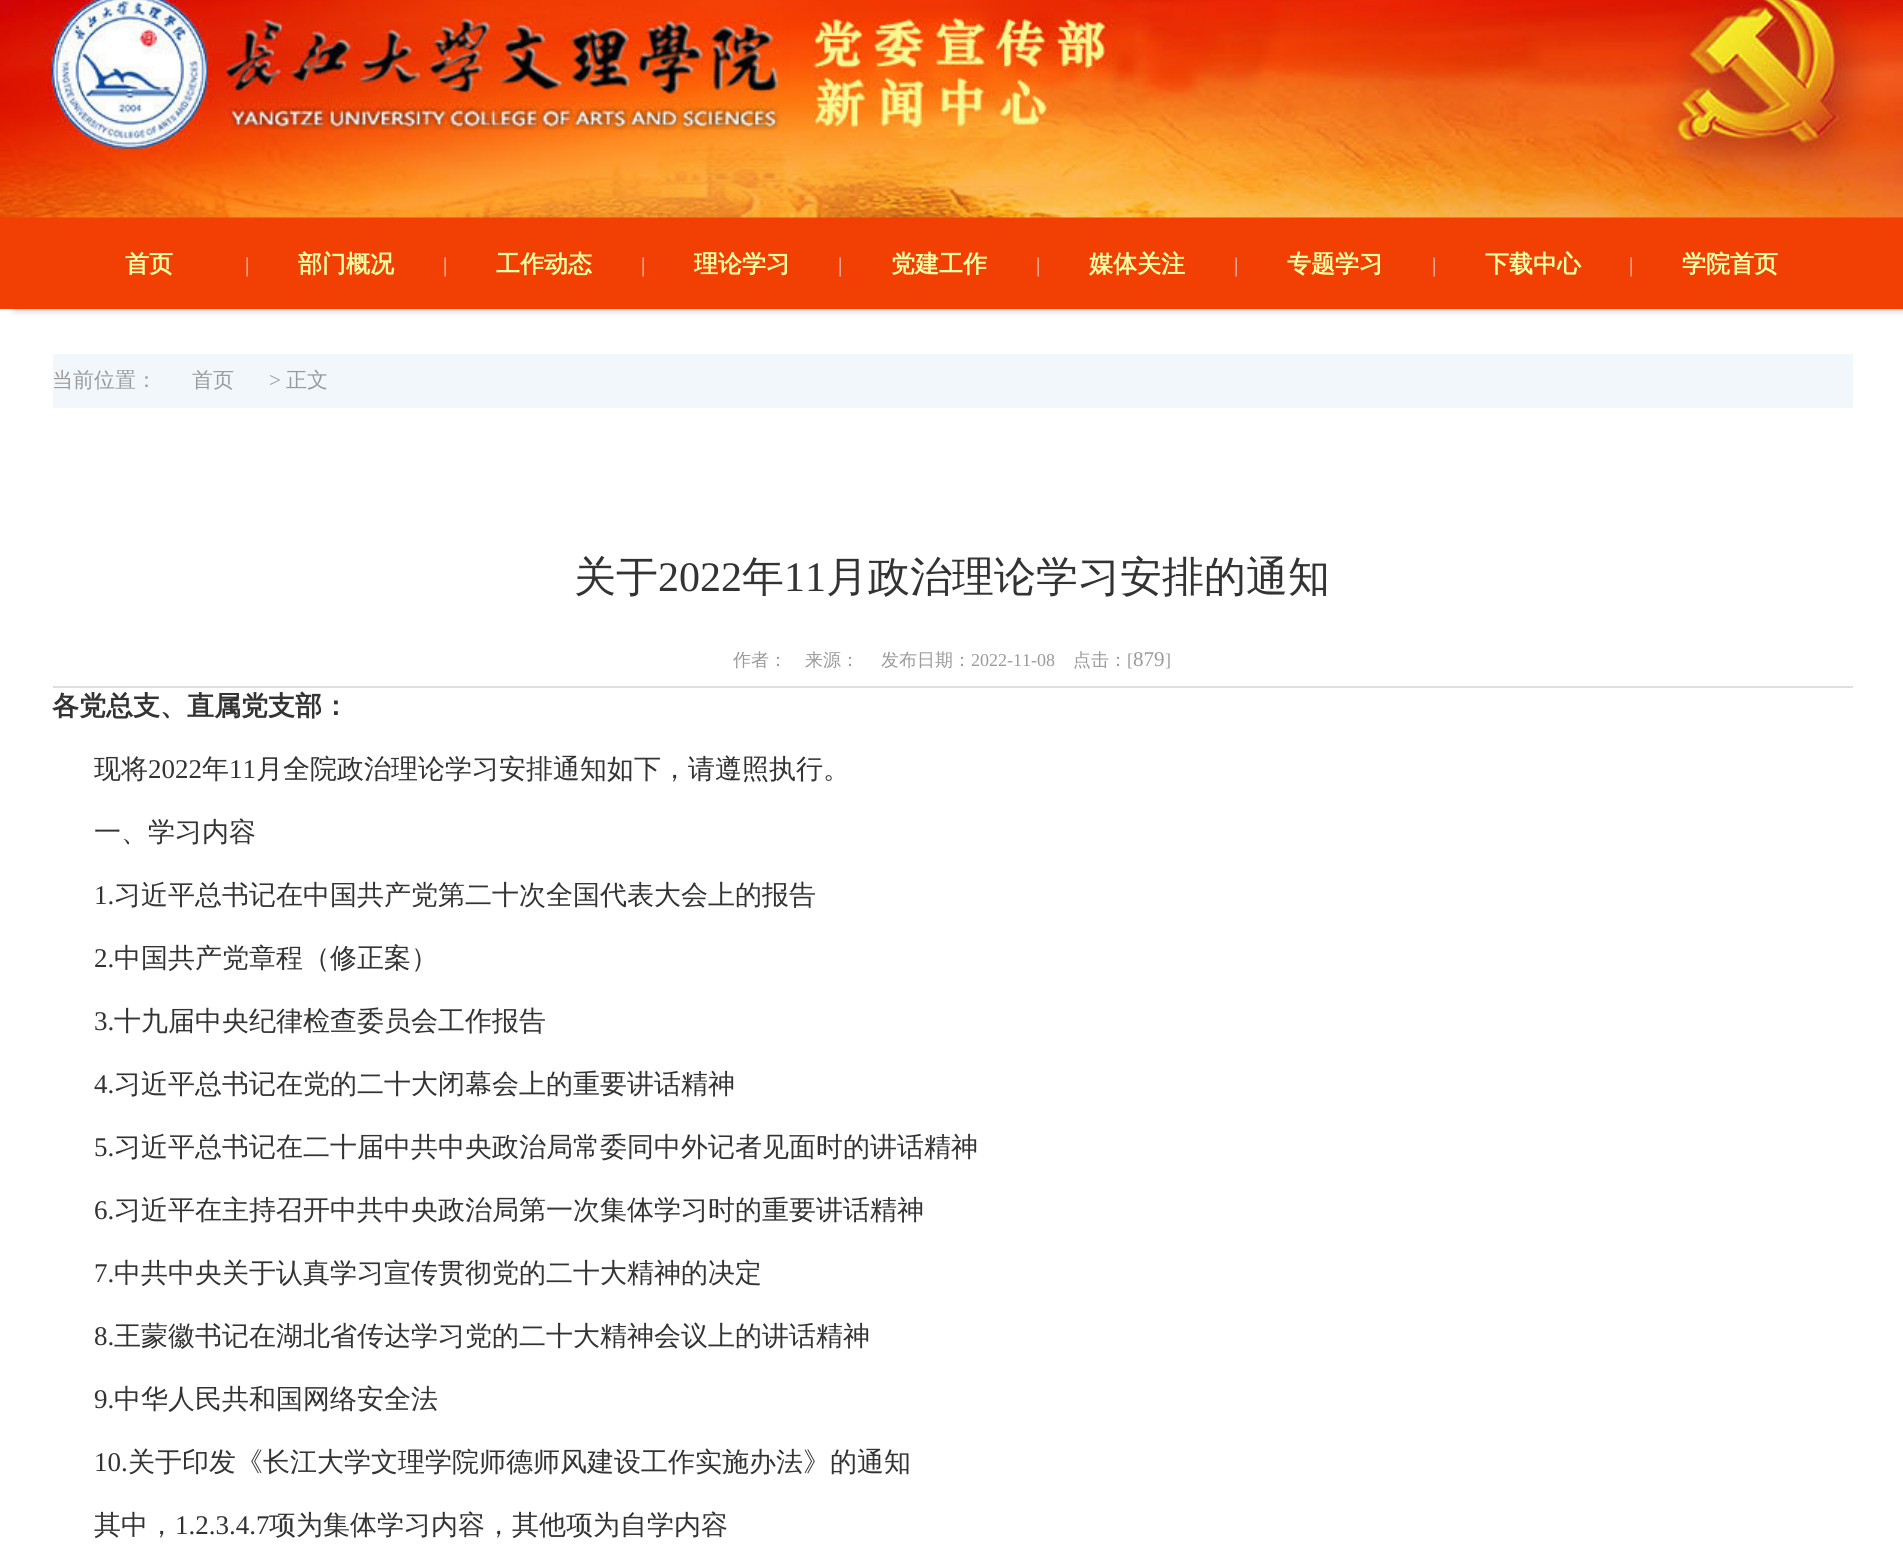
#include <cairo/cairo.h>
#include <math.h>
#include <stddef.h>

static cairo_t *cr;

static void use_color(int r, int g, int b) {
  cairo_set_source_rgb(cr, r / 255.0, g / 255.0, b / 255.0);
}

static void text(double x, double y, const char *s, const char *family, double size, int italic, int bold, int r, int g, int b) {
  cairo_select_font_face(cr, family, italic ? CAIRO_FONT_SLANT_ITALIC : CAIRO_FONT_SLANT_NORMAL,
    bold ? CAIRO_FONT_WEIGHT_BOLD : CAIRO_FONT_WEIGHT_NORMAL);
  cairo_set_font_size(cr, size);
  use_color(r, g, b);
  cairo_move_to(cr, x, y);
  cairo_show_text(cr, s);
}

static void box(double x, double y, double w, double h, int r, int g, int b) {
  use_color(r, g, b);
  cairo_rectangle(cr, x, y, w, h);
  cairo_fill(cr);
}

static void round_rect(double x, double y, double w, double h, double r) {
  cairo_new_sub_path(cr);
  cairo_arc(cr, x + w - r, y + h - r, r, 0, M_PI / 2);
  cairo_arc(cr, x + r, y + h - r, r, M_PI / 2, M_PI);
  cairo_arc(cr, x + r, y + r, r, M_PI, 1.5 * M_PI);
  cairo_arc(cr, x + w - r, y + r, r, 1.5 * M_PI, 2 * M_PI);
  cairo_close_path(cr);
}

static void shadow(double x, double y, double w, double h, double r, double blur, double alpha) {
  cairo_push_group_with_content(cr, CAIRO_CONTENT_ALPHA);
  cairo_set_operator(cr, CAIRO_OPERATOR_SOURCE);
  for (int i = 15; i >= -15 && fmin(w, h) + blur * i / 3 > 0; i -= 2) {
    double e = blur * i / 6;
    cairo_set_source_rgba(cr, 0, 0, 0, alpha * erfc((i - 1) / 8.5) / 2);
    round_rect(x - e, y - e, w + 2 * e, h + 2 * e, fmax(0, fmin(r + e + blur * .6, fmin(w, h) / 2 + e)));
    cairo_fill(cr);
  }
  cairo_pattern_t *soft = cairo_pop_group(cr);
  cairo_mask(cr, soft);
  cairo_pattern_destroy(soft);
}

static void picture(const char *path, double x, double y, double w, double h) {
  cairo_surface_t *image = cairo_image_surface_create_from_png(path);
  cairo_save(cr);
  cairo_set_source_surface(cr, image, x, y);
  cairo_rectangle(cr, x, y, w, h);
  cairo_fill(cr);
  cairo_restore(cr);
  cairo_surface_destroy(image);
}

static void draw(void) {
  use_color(255, 255, 255);
  cairo_paint(cr);
  box(0, 217, 1903, 92, 242, 63, 3);
  picture("img_01.png", 0, 0, 1903, 218);
  cairo_save(cr);
  cairo_rectangle(cr, 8, 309, 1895, 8);
  cairo_clip(cr);
  use_color(169, 169, 169);
  shadow(15, 234, 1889, 75, 0, 4, 1);
  cairo_restore(cr);
  box(53, 354, 1800, 54, 242, 247, 252);
  box(53, 686, 1800, 2, 222, 222, 222);
  text(125, 272, "首页", "WenQuanYi Zen Hei", 24, 0, 1, 244, 254, 165);
  text(245, 272, "|", "Liberation Serif", 21, 0, 0, 221, 221, 221);
  text(298, 272, "部门概况", "WenQuanYi Zen Hei", 24, 0, 1, 244, 254, 165);
  text(443, 272, "|", "Liberation Serif", 21, 0, 0, 221, 221, 221);
  text(496, 272, "工作动态", "WenQuanYi Zen Hei", 24, 0, 1, 244, 254, 165);
  text(641, 272, "|", "Liberation Serif", 21, 0, 0, 221, 221, 221);
  text(694, 272, "理论学习", "WenQuanYi Zen Hei", 24, 0, 1, 244, 254, 165);
  text(838, 272, "|", "Liberation Serif", 21, 0, 0, 221, 221, 221);
  text(891, 272, "党建工作", "WenQuanYi Zen Hei", 24, 0, 1, 244, 254, 165);
  text(1036, 272, "|", "Liberation Serif", 21, 0, 0, 221, 221, 221);
  text(1089, 272, "媒体关注", "WenQuanYi Zen Hei", 24, 0, 1, 244, 254, 165);
  text(1234, 272, "|", "Liberation Serif", 21, 0, 0, 221, 221, 221);
  text(1287, 272, "专题学习", "WenQuanYi Zen Hei", 24, 0, 1, 244, 254, 165);
  text(1432, 272, "|", "Liberation Serif", 21, 0, 0, 221, 221, 221);
  text(1485, 272, "下载中心", "WenQuanYi Zen Hei", 24, 0, 1, 244, 254, 165);
  text(1629, 272, "|", "Liberation Serif", 21, 0, 0, 221, 221, 221);
  text(1682, 272, "学院首页", "WenQuanYi Zen Hei", 24, 0, 1, 244, 254, 165);
  text(52, 387, "当前位置：", "WenQuanYi Zen Hei Medium", 21, 0, 0, 154, 154, 154);
  text(192, 387, "首页", "WenQuanYi Zen Hei Medium", 21, 0, 0, 154, 154, 154);
  text(269, 387, ">", "Liberation Serif", 21, 0, 0, 154, 154, 154);
  text(286, 387, "正文", "WenQuanYi Zen Hei Medium", 21, 0, 0, 154, 154, 154);
  text(574, 591, "关于", "WenQuanYi Zen Hei Medium", 42, 0, 0, 51, 51, 51);
  text(658, 591, "2022", "Liberation Serif", 42, 0, 0, 51, 51, 51);
  text(742, 591, "年", "WenQuanYi Zen Hei Medium", 42, 0, 0, 51, 51, 51);
  text(784, 591, "11", "Liberation Serif", 42, 0, 0, 51, 51, 51);
  text(826, 591, "月政治理论学习安排的通知", "WenQuanYi Zen Hei Medium", 42, 0, 0, 51, 51, 51);
  text(733, 666, "作者：", "WenQuanYi Zen Hei Medium", 18, 0, 0, 154, 154, 154);
  text(805, 666, "来源：", "WenQuanYi Zen Hei Medium", 18, 0, 0, 154, 154, 154);
  text(881, 666, "发布日期：", "WenQuanYi Zen Hei Medium", 18, 0, 0, 154, 154, 154);
  text(971, 666, "2022-11-08", "Liberation Serif", 18, 0, 0, 154, 154, 154);
  text(1073, 666, "点击：", "WenQuanYi Zen Hei Medium", 18, 0, 0, 154, 154, 154);
  text(1127, 666, "[", "Liberation Serif", 18, 0, 0, 154, 154, 154);
  text(1133, 666, "879", "Liberation Serif", 21, 0, 0, 154, 154, 154);
  text(1165, 666, "]", "Liberation Serif", 18, 0, 0, 154, 154, 154);
  text(52, 715, "各党总支、直属党支部：", "WenQuanYi Zen Hei", 27, 0, 1, 51, 51, 51);
  text(94, 778, "现将", "WenQuanYi Zen Hei Medium", 27, 0, 0, 51, 51, 51);
  text(148, 778, "2022", "Liberation Serif", 27, 0, 0, 51, 51, 51);
  text(202, 778, "年", "WenQuanYi Zen Hei Medium", 27, 0, 0, 51, 51, 51);
  text(229, 778, "11", "Liberation Serif", 27, 0, 0, 51, 51, 51);
  text(256, 778, "月全院政治理论学习安排通知如下，请遵照执行。", "WenQuanYi Zen Hei Medium", 27, 0, 0, 51, 51, 51);
  text(94, 841, "一、学习内容", "WenQuanYi Zen Hei Medium", 27, 0, 0, 51, 51, 51);
  text(94, 904, "1.", "Liberation Serif", 27, 0, 0, 51, 51, 51);
  text(114, 904, "习近平总书记在中国共产党第二十次全国代表大会上的报告", "WenQuanYi Zen Hei Medium", 27, 0, 0, 51, 51, 51);
  text(94, 967, "2.", "Liberation Serif", 27, 0, 0, 51, 51, 51);
  text(114, 967, "中国共产党章程（修正案）", "WenQuanYi Zen Hei Medium", 27, 0, 0, 51, 51, 51);
  text(94, 1030, "3.", "Liberation Serif", 27, 0, 0, 51, 51, 51);
  text(114, 1030, "十九届中央纪律检查委员会工作报告", "WenQuanYi Zen Hei Medium", 27, 0, 0, 51, 51, 51);
  text(94, 1093, "4.", "Liberation Serif", 27, 0, 0, 51, 51, 51);
  text(114, 1093, "习近平总书记在党的二十大闭幕会上的重要讲话精神", "WenQuanYi Zen Hei Medium", 27, 0, 0, 51, 51, 51);
  text(94, 1156, "5.", "Liberation Serif", 27, 0, 0, 51, 51, 51);
  text(114, 1156, "习近平总书记在二十届中共中央政治局常委同中外记者见面时的讲话精神", "WenQuanYi Zen Hei Medium", 27, 0, 0, 51, 51, 51);
  text(94, 1219, "6.", "Liberation Serif", 27, 0, 0, 51, 51, 51);
  text(114, 1219, "习近平在主持召开中共中央政治局第一次集体学习时的重要讲话精神", "WenQuanYi Zen Hei Medium", 27, 0, 0, 51, 51, 51);
  text(94, 1282, "7.", "Liberation Serif", 27, 0, 0, 51, 51, 51);
  text(114, 1282, "中共中央关于认真学习宣传贯彻党的二十大精神的决定", "WenQuanYi Zen Hei Medium", 27, 0, 0, 51, 51, 51);
  text(94, 1345, "8.", "Liberation Serif", 27, 0, 0, 51, 51, 51);
  text(114, 1345, "王蒙徽书记在湖北省传达学习党的二十大精神会议上的讲话精神", "WenQuanYi Zen Hei Medium", 27, 0, 0, 51, 51, 51);
  text(94, 1408, "9.", "Liberation Serif", 27, 0, 0, 51, 51, 51);
  text(114, 1408, "中华人民共和国网络安全法", "WenQuanYi Zen Hei Medium", 27, 0, 0, 51, 51, 51);
  text(94, 1471, "10.", "Liberation Serif", 27, 0, 0, 51, 51, 51);
  text(128, 1471, "关于印发《长江大学文理学院师德师风建设工作实施办法》的通知", "WenQuanYi Zen Hei Medium", 27, 0, 0, 51, 51, 51);
  text(94, 1534, "其中，", "WenQuanYi Zen Hei Medium", 27, 0, 0, 51, 51, 51);
  text(175, 1534, "1.2.3.4.7", "Liberation Serif", 27, 0, 0, 51, 51, 51);
  text(269, 1534, "项为集体学习内容，其他项为自学内容", "WenQuanYi Zen Hei Medium", 27, 0, 0, 51, 51, 51);
}

int main(void) {
  cairo_surface_t *surface = cairo_image_surface_create(CAIRO_FORMAT_RGB24, 1903, 1568);
  cr = cairo_create(surface);
  cairo_font_options_t *options = cairo_font_options_create();
  cairo_font_options_set_hint_metrics(options, CAIRO_HINT_METRICS_OFF);
  cairo_font_options_set_hint_style(options, CAIRO_HINT_STYLE_NONE);
  cairo_set_font_options(cr, options);
  cairo_set_miter_limit(cr, 4);
  draw();
  cairo_surface_write_to_png(surface, "out.png");
  cairo_font_options_destroy(options);
  cairo_destroy(cr);
  cairo_surface_destroy(surface);
  return 0;
}
